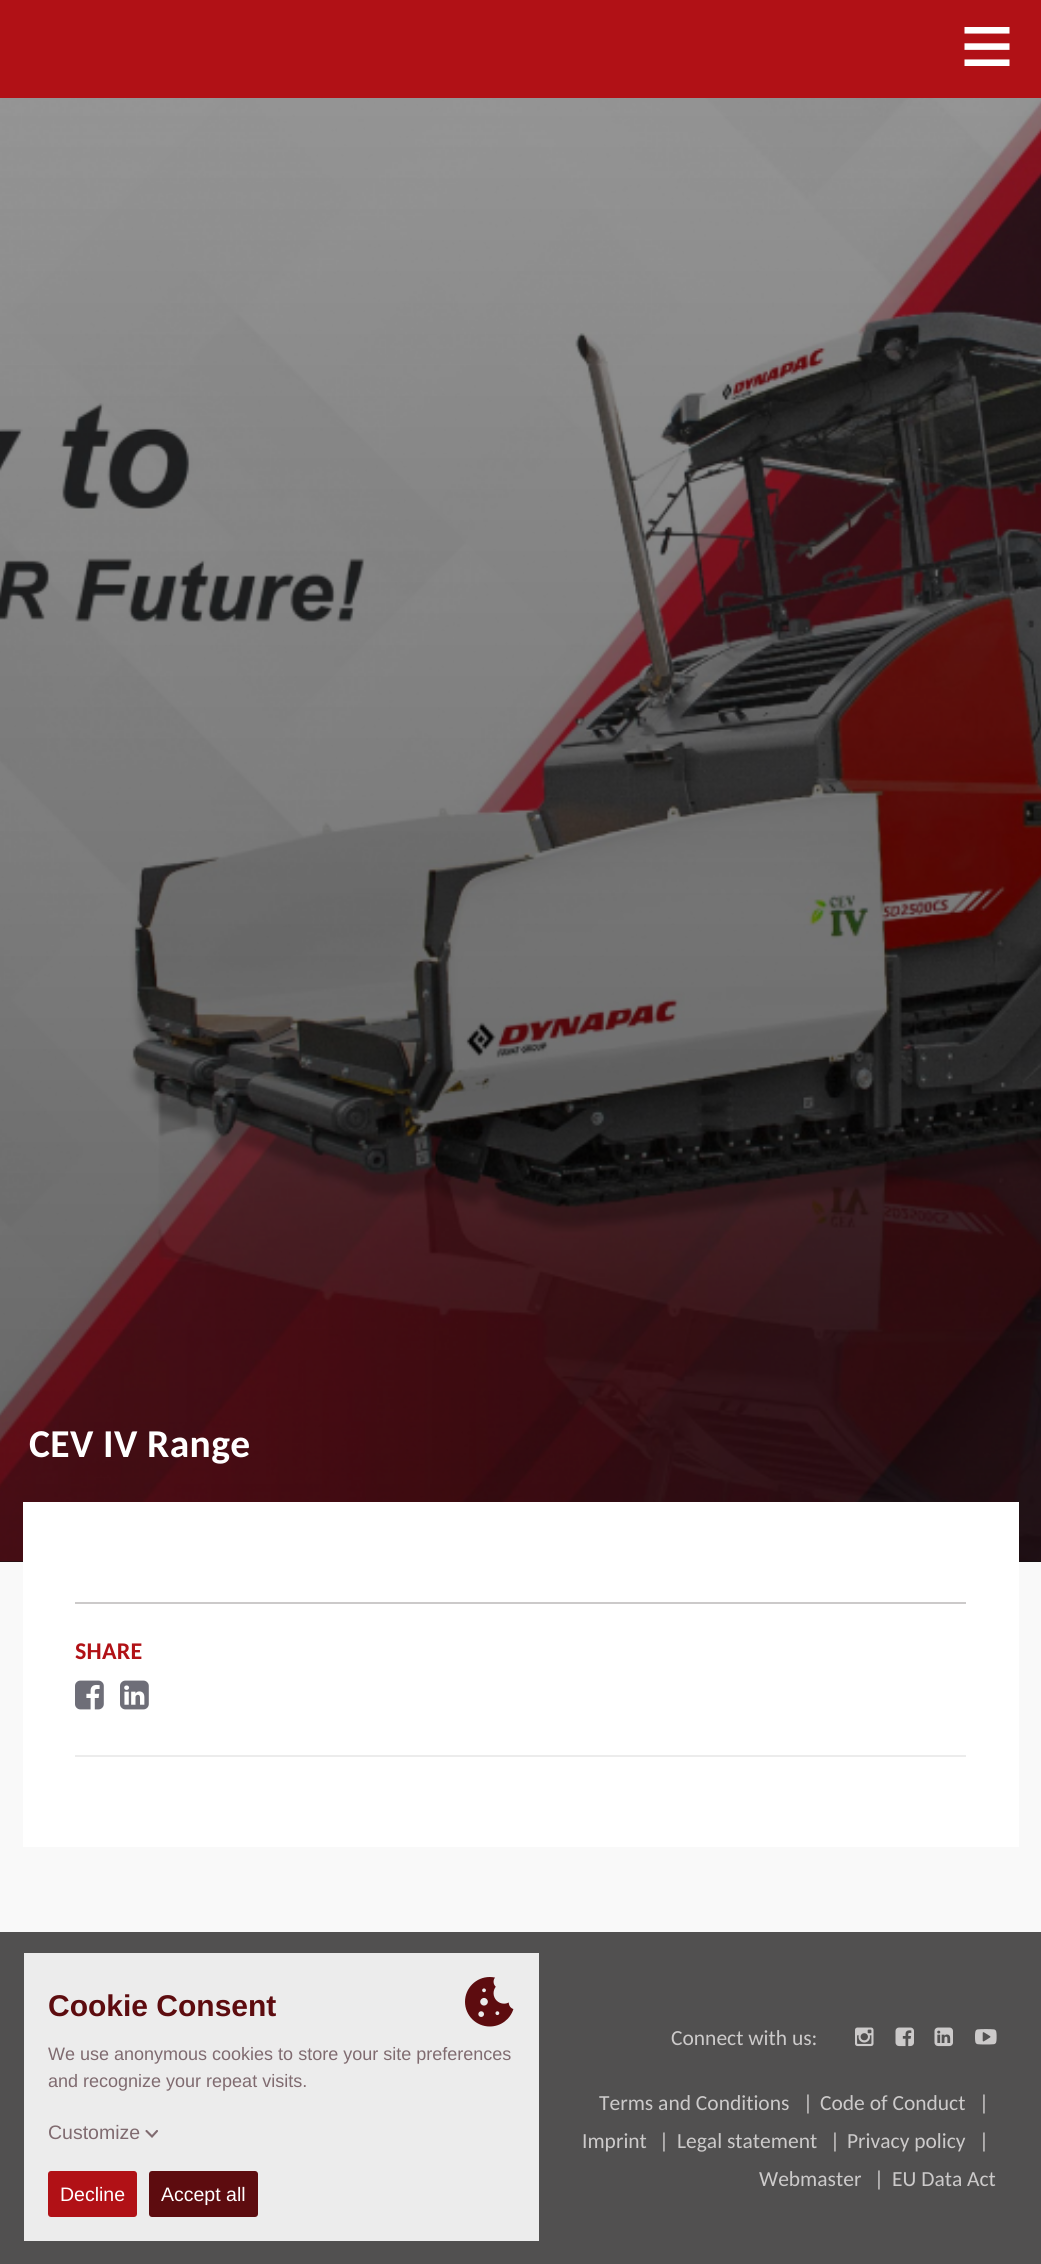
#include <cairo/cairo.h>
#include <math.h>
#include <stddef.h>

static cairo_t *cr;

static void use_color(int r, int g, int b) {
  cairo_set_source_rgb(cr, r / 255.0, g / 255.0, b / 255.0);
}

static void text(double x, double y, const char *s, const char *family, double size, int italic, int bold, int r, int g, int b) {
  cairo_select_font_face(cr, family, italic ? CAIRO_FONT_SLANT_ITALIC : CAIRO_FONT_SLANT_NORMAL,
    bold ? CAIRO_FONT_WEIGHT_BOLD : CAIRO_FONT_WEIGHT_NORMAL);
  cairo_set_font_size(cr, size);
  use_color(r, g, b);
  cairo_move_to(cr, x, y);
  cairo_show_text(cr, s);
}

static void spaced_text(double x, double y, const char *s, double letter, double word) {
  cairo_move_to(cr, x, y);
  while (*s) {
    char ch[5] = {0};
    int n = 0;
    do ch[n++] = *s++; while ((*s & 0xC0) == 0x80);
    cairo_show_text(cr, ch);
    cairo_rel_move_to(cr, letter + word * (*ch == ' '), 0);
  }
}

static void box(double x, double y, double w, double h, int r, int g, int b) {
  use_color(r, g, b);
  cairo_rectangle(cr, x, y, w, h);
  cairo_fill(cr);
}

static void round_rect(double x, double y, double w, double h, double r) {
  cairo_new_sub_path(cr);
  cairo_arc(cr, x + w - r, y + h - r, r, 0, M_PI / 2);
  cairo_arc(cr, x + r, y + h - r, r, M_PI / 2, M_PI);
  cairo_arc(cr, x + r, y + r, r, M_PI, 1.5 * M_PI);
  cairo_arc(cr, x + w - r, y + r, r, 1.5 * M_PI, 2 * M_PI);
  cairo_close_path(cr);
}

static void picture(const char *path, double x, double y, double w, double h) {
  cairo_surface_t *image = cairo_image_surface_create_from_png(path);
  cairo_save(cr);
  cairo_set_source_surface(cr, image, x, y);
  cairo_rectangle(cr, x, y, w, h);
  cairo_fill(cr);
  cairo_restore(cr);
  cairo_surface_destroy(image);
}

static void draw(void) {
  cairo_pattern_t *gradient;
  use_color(249, 249, 249);
  cairo_paint(cr);
  box(0, 0, 1041, 98, 177, 17, 22);
  picture("img_01.png", 964, 27, 46, 39);
  box(0, 1561, 1041, 1, 43, 43, 43);
  picture("img_02.png", 0, 98, 1041, 1464);
  gradient = cairo_pattern_create_linear(521, 1562, 521, -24);
  cairo_pattern_add_color_stop_rgba(gradient, 0, 0, 0, 0, 0.6);
  cairo_pattern_add_color_stop_rgba(gradient, 1, 0, 0, 0, 0.4);
  cairo_set_source(cr, gradient);
  cairo_pattern_destroy(gradient);
  cairo_rectangle(cr, 0, 98, 1041, 1464);
  cairo_fill(cr);
  box(23, 1502, 996, 345, 255, 255, 255);
  box(75, 1602, 891, 2, 204, 202, 202);
  box(75, 1755, 891, 2, 236, 236, 236);
  picture("img_03.png", 75, 1680, 29, 30);
  picture("img_04.png", 120, 1680, 29, 30);
  box(0, 1932, 1041, 332, 81, 80, 80);
  picture("img_05.png", 855, 2027, 19, 20);
  picture("img_06.png", 895, 2027, 19, 20);
  picture("img_07.png", 934, 2027, 19, 20);
  picture("img_08.png", 975, 2029, 22, 16);
  box(24, 1953, 515, 288, 236, 236, 236);
  picture("img_09.png", 465, 1977, 49, 50);
  cairo_new_path(cr);
  cairo_move_to(cr, 146.5, 2131);
  cairo_line_to(cr, 152, 2136.5);
  cairo_line_to(cr, 157, 2131);
  use_color(128, 107, 112);
  cairo_set_line_width(cr, 2.1);
  cairo_set_line_cap(cr, CAIRO_LINE_CAP_ROUND);
  cairo_stroke(cr);
  use_color(177, 17, 22);
  round_rect(48, 2171, 89, 46, 3);
  cairo_fill(cr);
  use_color(93, 12, 15);
  round_rect(149, 2171, 109, 46, 3);
  cairo_fill(cr);
  cairo_select_font_face(cr, "Carlito", CAIRO_FONT_SLANT_NORMAL, CAIRO_FONT_WEIGHT_BOLD);
  cairo_set_font_size(cr, 39.5);
  use_color(255, 255, 255);
  spaced_text(29, 1457, "CEV IV Range", 0.4, 0);
  cairo_set_font_size(cr, 24);
  use_color(177, 17, 22);
  spaced_text(75, 1659, "SHARE", 0.25, 0);
  text(671, 2045, "Connect with us:", "Carlito", 21.5, 0, 0, 204, 202, 202);
  text(599, 2110, "Terms and Conditions", "Carlito", 21.5, 0, 0, 204, 202, 202);
  text(803, 2110, "|", "Carlito", 21.5, 0, 0, 204, 202, 202);
  text(820, 2110, "Code of Conduct", "Carlito", 21.5, 0, 0, 204, 202, 202);
  text(979, 2110, "|", "Carlito", 21.5, 0, 0, 204, 202, 202);
  text(582, 2148, "Imprint", "Carlito", 21.5, 0, 0, 204, 202, 202);
  text(659, 2148, "|", "Carlito", 21.5, 0, 0, 204, 202, 202);
  text(677, 2148, "Legal statement", "Carlito", 21.5, 0, 0, 204, 202, 202);
  text(830, 2148, "|", "Carlito", 21.5, 0, 0, 204, 202, 202);
  text(847, 2148, "Privacy policy", "Carlito", 21.5, 0, 0, 204, 202, 202);
  text(979, 2148, "|", "Carlito", 21.5, 0, 0, 204, 202, 202);
  text(759, 2186, "Webmaster", "Carlito", 21.5, 0, 0, 204, 202, 202);
  text(874, 2186, "|", "Carlito", 21.5, 0, 0, 204, 202, 202);
  text(892, 2186, "EU Data Act", "Carlito", 21.5, 0, 0, 204, 202, 202);
  text(48, 2016, "Cookie Consent", "Liberation Sans", 30, 0, 1, 93, 12, 15);
  text(48, 2060, "We use anonymous cookies to store your site preferences", "Liberation Sans", 18, 0, 0, 128, 107, 112);
  text(48, 2087, "and recognize your repeat visits.", "Liberation Sans", 18, 0, 0, 128, 107, 112);
  text(48, 2139, "Customize", "Liberation Sans", 19.5, 0, 0, 128, 107, 112);
  text(60, 2201, "Decline", "Liberation Sans", 19.5, 0, 0, 255, 255, 255);
  text(161, 2201, "Accept all", "Liberation Sans", 19.5, 0, 0, 255, 255, 255);
}

int main(void) {
  cairo_surface_t *surface = cairo_image_surface_create(CAIRO_FORMAT_RGB24, 1041, 2264);
  cr = cairo_create(surface);
  cairo_font_options_t *options = cairo_font_options_create();
  cairo_font_options_set_hint_metrics(options, CAIRO_HINT_METRICS_OFF);
  cairo_font_options_set_hint_style(options, CAIRO_HINT_STYLE_NONE);
  cairo_set_font_options(cr, options);
  cairo_set_miter_limit(cr, 4);
  draw();
  cairo_surface_write_to_png(surface, "out.png");
  cairo_font_options_destroy(options);
  cairo_destroy(cr);
  cairo_surface_destroy(surface);
  return 0;
}
